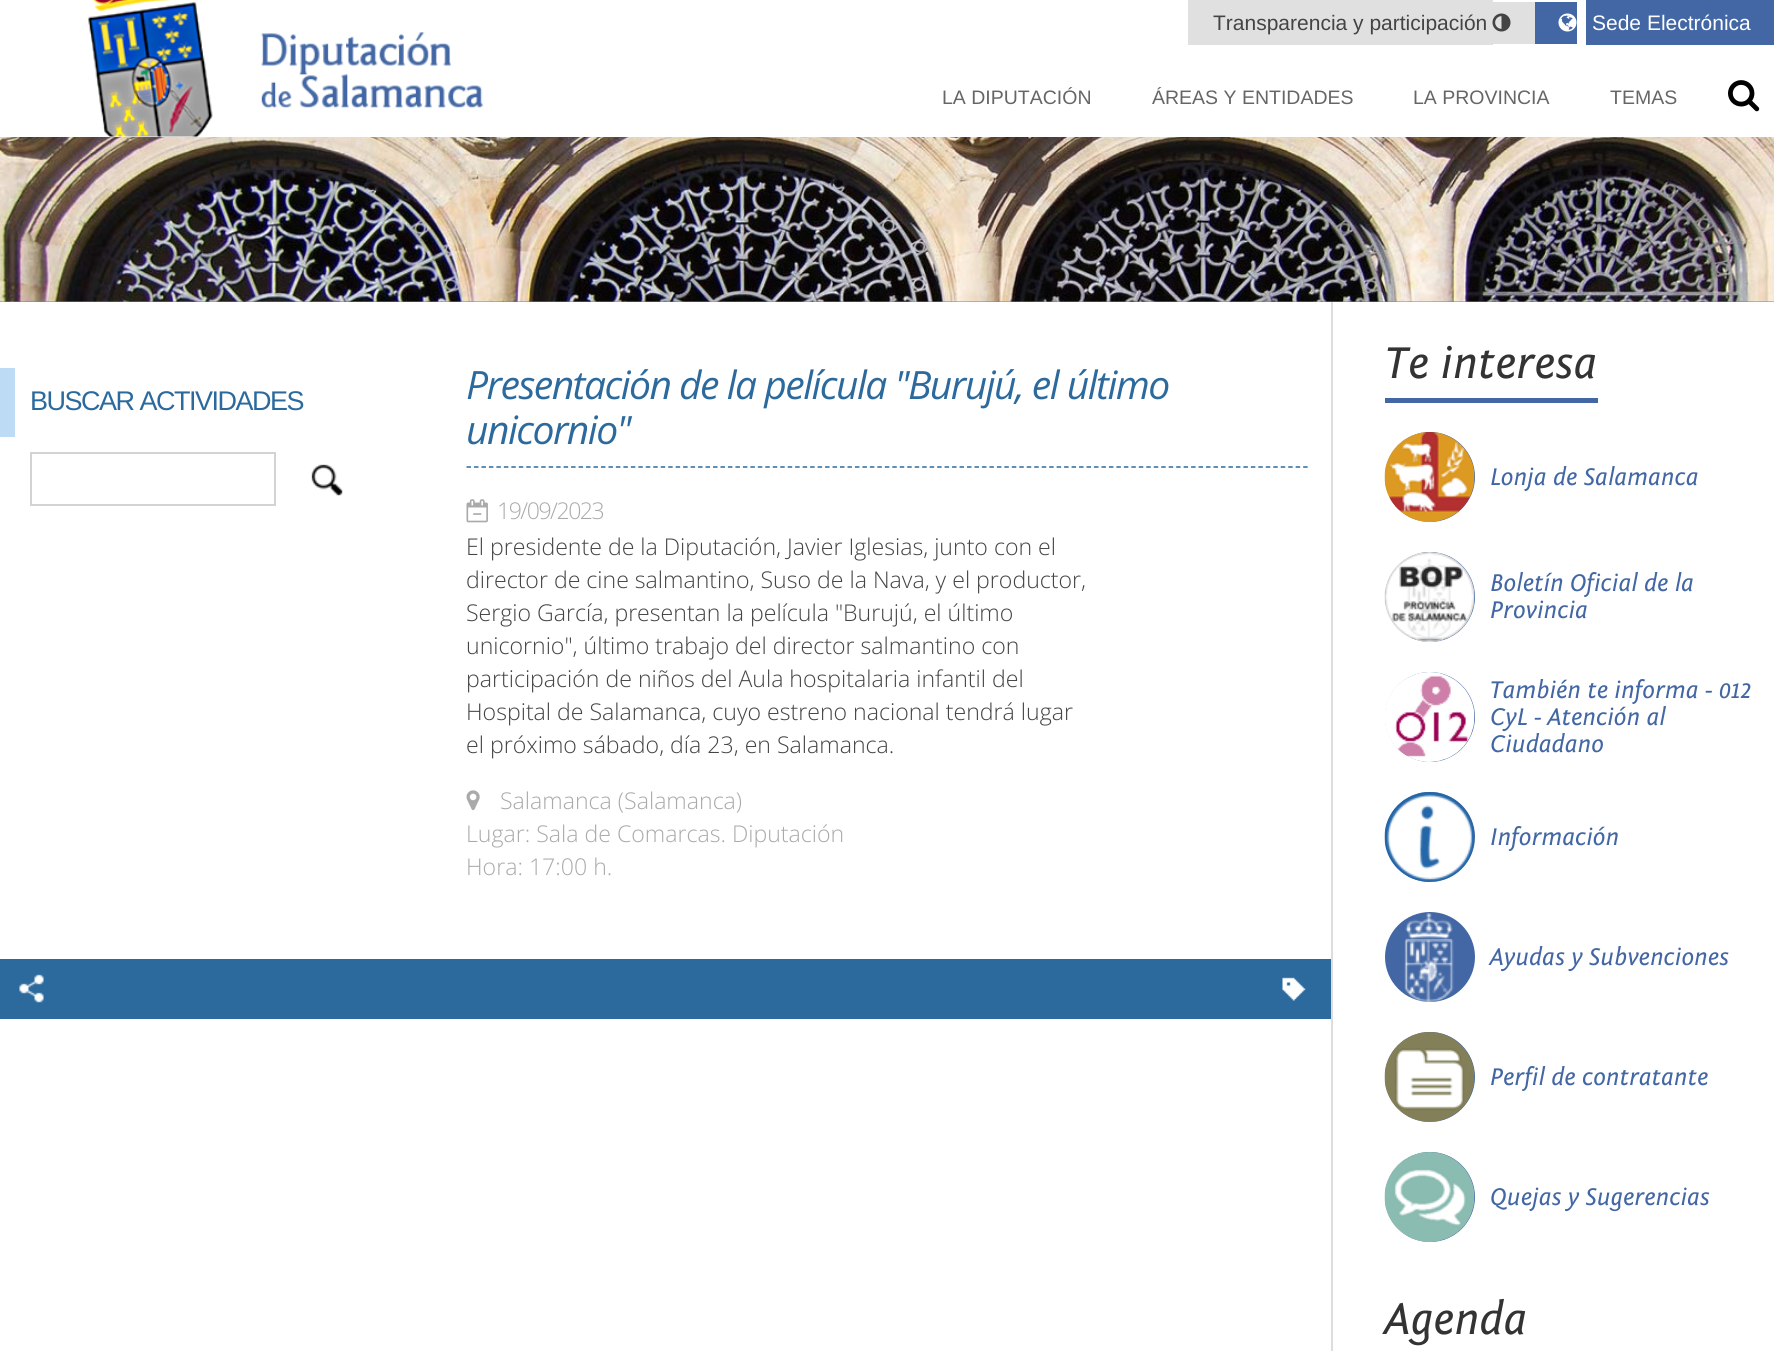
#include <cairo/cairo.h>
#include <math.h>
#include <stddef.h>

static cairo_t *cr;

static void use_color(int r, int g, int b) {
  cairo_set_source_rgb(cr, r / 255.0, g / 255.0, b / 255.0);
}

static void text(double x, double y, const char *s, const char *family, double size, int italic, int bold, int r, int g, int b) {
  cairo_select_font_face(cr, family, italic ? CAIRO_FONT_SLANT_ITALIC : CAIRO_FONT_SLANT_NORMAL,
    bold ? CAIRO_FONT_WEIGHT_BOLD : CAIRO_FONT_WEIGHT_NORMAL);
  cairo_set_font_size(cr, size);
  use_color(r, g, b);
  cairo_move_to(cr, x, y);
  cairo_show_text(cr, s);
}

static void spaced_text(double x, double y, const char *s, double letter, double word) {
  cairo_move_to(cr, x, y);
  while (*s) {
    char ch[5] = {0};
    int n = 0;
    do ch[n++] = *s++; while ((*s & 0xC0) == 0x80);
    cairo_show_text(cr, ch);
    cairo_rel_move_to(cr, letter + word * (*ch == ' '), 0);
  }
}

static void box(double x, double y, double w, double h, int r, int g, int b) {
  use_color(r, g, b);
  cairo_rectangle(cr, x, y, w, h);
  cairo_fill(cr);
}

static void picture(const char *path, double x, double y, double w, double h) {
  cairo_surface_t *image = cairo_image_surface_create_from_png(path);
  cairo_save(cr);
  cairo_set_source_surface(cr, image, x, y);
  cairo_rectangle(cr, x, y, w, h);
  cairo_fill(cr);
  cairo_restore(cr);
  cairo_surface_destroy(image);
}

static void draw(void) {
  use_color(255, 255, 255);
  cairo_paint(cr);
  picture("img_01.png", 88, 0, 396, 137);
  box(1188, 0, 305, 45, 224, 224, 224);
  box(1493, 2, 42, 42, 224, 224, 224);
  picture("img_02.png", 1492, 13, 19, 19);
  box(1535, 2, 42, 42, 66, 103, 164);
  picture("img_03.png", 1558, 13, 19, 19);
  box(1586, 0, 188, 45, 66, 103, 164);
  picture("img_04.png", 1728, 80, 32, 32);
  box(0, 301, 1774, 1, 128, 128, 128);
  picture("img_05.png", 0, 137, 1774, 165);
  box(0, 368, 15, 69, 189, 219, 244);
  cairo_rectangle(cr, 31, 453, 244, 52);
  use_color(211, 211, 211);
  cairo_stroke(cr);
  picture("img_06.png", 311, 464, 32, 32);
  cairo_new_path(cr);
  cairo_move_to(cr, 466.5, 467);
  cairo_line_to(cr, 1308, 467);
  use_color(44, 106, 157);
  cairo_set_line_width(cr, 1.5);
  cairo_set_dash(cr, (double[]){4.5, 2.97}, 2, 0);
  cairo_stroke(cr);
  picture("img_07.png", 466, 499, 22, 24);
  picture("img_08.png", 466, 790, 14, 21);
  box(0, 959, 1331, 60, 44, 106, 157);
  picture("img_09.png", 19, 974, 25, 29);
  picture("img_10.png", 1282, 977, 24, 24);
  box(1331, 302, 2, 1049, 221, 221, 221);
  box(1385, 398, 213, 5, 66, 103, 164);
  cairo_arc(cr, 1430, 477, 45, 0, 2 * M_PI);
  cairo_fill(cr);
  picture("img_11.png", 1413, 518, 30, 4);
  picture("img_12.png", 1384, 432, 91, 90);
  cairo_arc(cr, 1430, 597, 45, 0, 2 * M_PI);
  cairo_fill(cr);
  picture("img_13.png", 1413, 638, 30, 4);
  picture("img_14.png", 1384, 552, 91, 90);
  cairo_arc(cr, 1430, 717, 45, 0, 2 * M_PI);
  cairo_fill(cr);
  picture("img_11.png", 1413, 758, 30, 4);
  picture("img_15.png", 1385, 672, 90, 90);
  cairo_arc(cr, 1430, 837, 45, 0, 2 * M_PI);
  cairo_fill(cr);
  picture("img_11.png", 1413, 878, 30, 4);
  picture("img_16.png", 1384, 792, 91, 90);
  cairo_arc(cr, 1430, 957, 45, 0, 2 * M_PI);
  cairo_fill(cr);
  picture("img_17.png", 1404, 913, 50, 89);
  cairo_arc(cr, 1430, 1077, 45, 0, 2 * M_PI);
  cairo_fill(cr);
  picture("img_11.png", 1413, 1118, 30, 4);
  picture("img_18.png", 1384, 1032, 91, 90);
  cairo_arc(cr, 1430, 1197, 45, 0, 2 * M_PI);
  cairo_fill(cr);
  picture("img_11.png", 1413, 1238, 30, 4);
  picture("img_19.png", 1384, 1152, 91, 90);
  text(1213, 30, "Transparencia y participación", "Liberation Sans", 21, 0, 0, 68, 68, 68);
  text(1592, 30, "Sede Electrónica", "Liberation Sans", 21, 0, 0, 255, 255, 255);
  text(942, 104, "LA DIPUTACIÓN", "Liberation Sans", 19.5, 0, 0, 102, 102, 102);
  text(1152, 104, "ÁREAS Y ENTIDADES", "Liberation Sans", 19.5, 0, 0, 102, 102, 102);
  text(1413, 104, "LA PROVINCIA", "Liberation Sans", 19.5, 0, 0, 102, 102, 102);
  text(1610, 104, "TEMAS", "Liberation Sans", 19.5, 0, 0, 102, 102, 102);
  cairo_set_font_size(cr, 27);
  use_color(44, 106, 157);
  spaced_text(30, 410, "BUSCAR ACTIVIDADES", -1.5, 0);
  cairo_select_font_face(cr, "Open Sans", CAIRO_FONT_SLANT_ITALIC, CAIRO_FONT_WEIGHT_NORMAL);
  cairo_set_font_size(cr, 39);
  spaced_text(466, 399, "Presentación de la película \"Burujú, el último", -1.5, 0);
  spaced_text(466, 444, "unicornio\"", -1.5, 0);
  cairo_select_font_face(cr, "Open Sans Light", CAIRO_FONT_SLANT_NORMAL, CAIRO_FONT_WEIGHT_NORMAL);
  cairo_set_font_size(cr, 23.1);
  use_color(170, 170, 170);
  spaced_text(497, 519, "19/09/2023", -1.5, 0);
  text(466, 555, "El presidente de la Diputación, Javier Iglesias, junto con el", "Open Sans Light", 23.1, 0, 0, 68, 68, 68);
  text(466, 588, "director de cine salmantino, Suso de la Nava, y el productor,", "Open Sans Light", 23.1, 0, 0, 68, 68, 68);
  text(466, 621, "Sergio García, presentan la película \"Burujú, el último", "Open Sans Light", 23.1, 0, 0, 68, 68, 68);
  text(466, 654, "unicornio\", último trabajo del director salmantino con", "Open Sans Light", 23.1, 0, 0, 68, 68, 68);
  text(466, 687, "participación de niños del Aula hospitalaria infantil del", "Open Sans Light", 23.1, 0, 0, 68, 68, 68);
  text(466, 720, "Hospital de Salamanca, cuyo estreno nacional tendrá lugar", "Open Sans Light", 23.1, 0, 0, 68, 68, 68);
  text(466, 753, "el próximo sábado, día 23, en Salamanca.", "Open Sans Light", 23.1, 0, 0, 68, 68, 68);
  text(500, 809, "Salamanca (Salamanca)", "Open Sans Light", 23.1, 0, 0, 170, 170, 170);
  text(466, 842, "Lugar: Sala de Comarcas. Diputación", "Open Sans Light", 23.1, 0, 0, 170, 170, 170);
  text(466, 875, "Hora: 17:00 h.", "Open Sans Light", 23.1, 0, 0, 170, 170, 170);
  text(1385, 378, "Te interesa", "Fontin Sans", 46.5, 1, 0, 51, 51, 51);
  text(1490, 485, "Lonja de Salamanca", "Fontin Sans", 25.25, 1, 0, 66, 103, 164);
  text(1490, 591, "Boletín Oficial de la", "Fontin Sans", 25.25, 1, 0, 66, 103, 164);
  text(1490, 618, "Provincia", "Fontin Sans", 25.25, 1, 0, 66, 103, 164);
  text(1490, 698, "También te informa - 012", "Fontin Sans", 25.25, 1, 0, 66, 103, 164);
  text(1490, 725, "CyL - Atención al", "Fontin Sans", 25.25, 1, 0, 66, 103, 164);
  text(1490, 752, "Ciudadano", "Fontin Sans", 25.25, 1, 0, 66, 103, 164);
  text(1490, 845, "Información", "Fontin Sans", 25.25, 1, 0, 66, 103, 164);
  text(1490, 965, "Ayudas y Subvenciones", "Fontin Sans", 25.25, 1, 0, 66, 103, 164);
  text(1490, 1085, "Perfil de contratante", "Fontin Sans", 25.25, 1, 0, 66, 103, 164);
  text(1490, 1205, "Quejas y Sugerencias", "Fontin Sans", 25.25, 1, 0, 66, 103, 164);
  text(1385, 1334, "Agenda", "Fontin Sans", 46.5, 1, 0, 51, 51, 51);
}

int main(void) {
  cairo_surface_t *surface = cairo_image_surface_create(CAIRO_FORMAT_RGB24, 1774, 1351);
  cr = cairo_create(surface);
  cairo_font_options_t *options = cairo_font_options_create();
  cairo_font_options_set_hint_metrics(options, CAIRO_HINT_METRICS_OFF);
  cairo_font_options_set_hint_style(options, CAIRO_HINT_STYLE_NONE);
  cairo_set_font_options(cr, options);
  cairo_set_miter_limit(cr, 4);
  draw();
  cairo_surface_write_to_png(surface, "out.png");
  cairo_font_options_destroy(options);
  cairo_destroy(cr);
  cairo_surface_destroy(surface);
  return 0;
}
